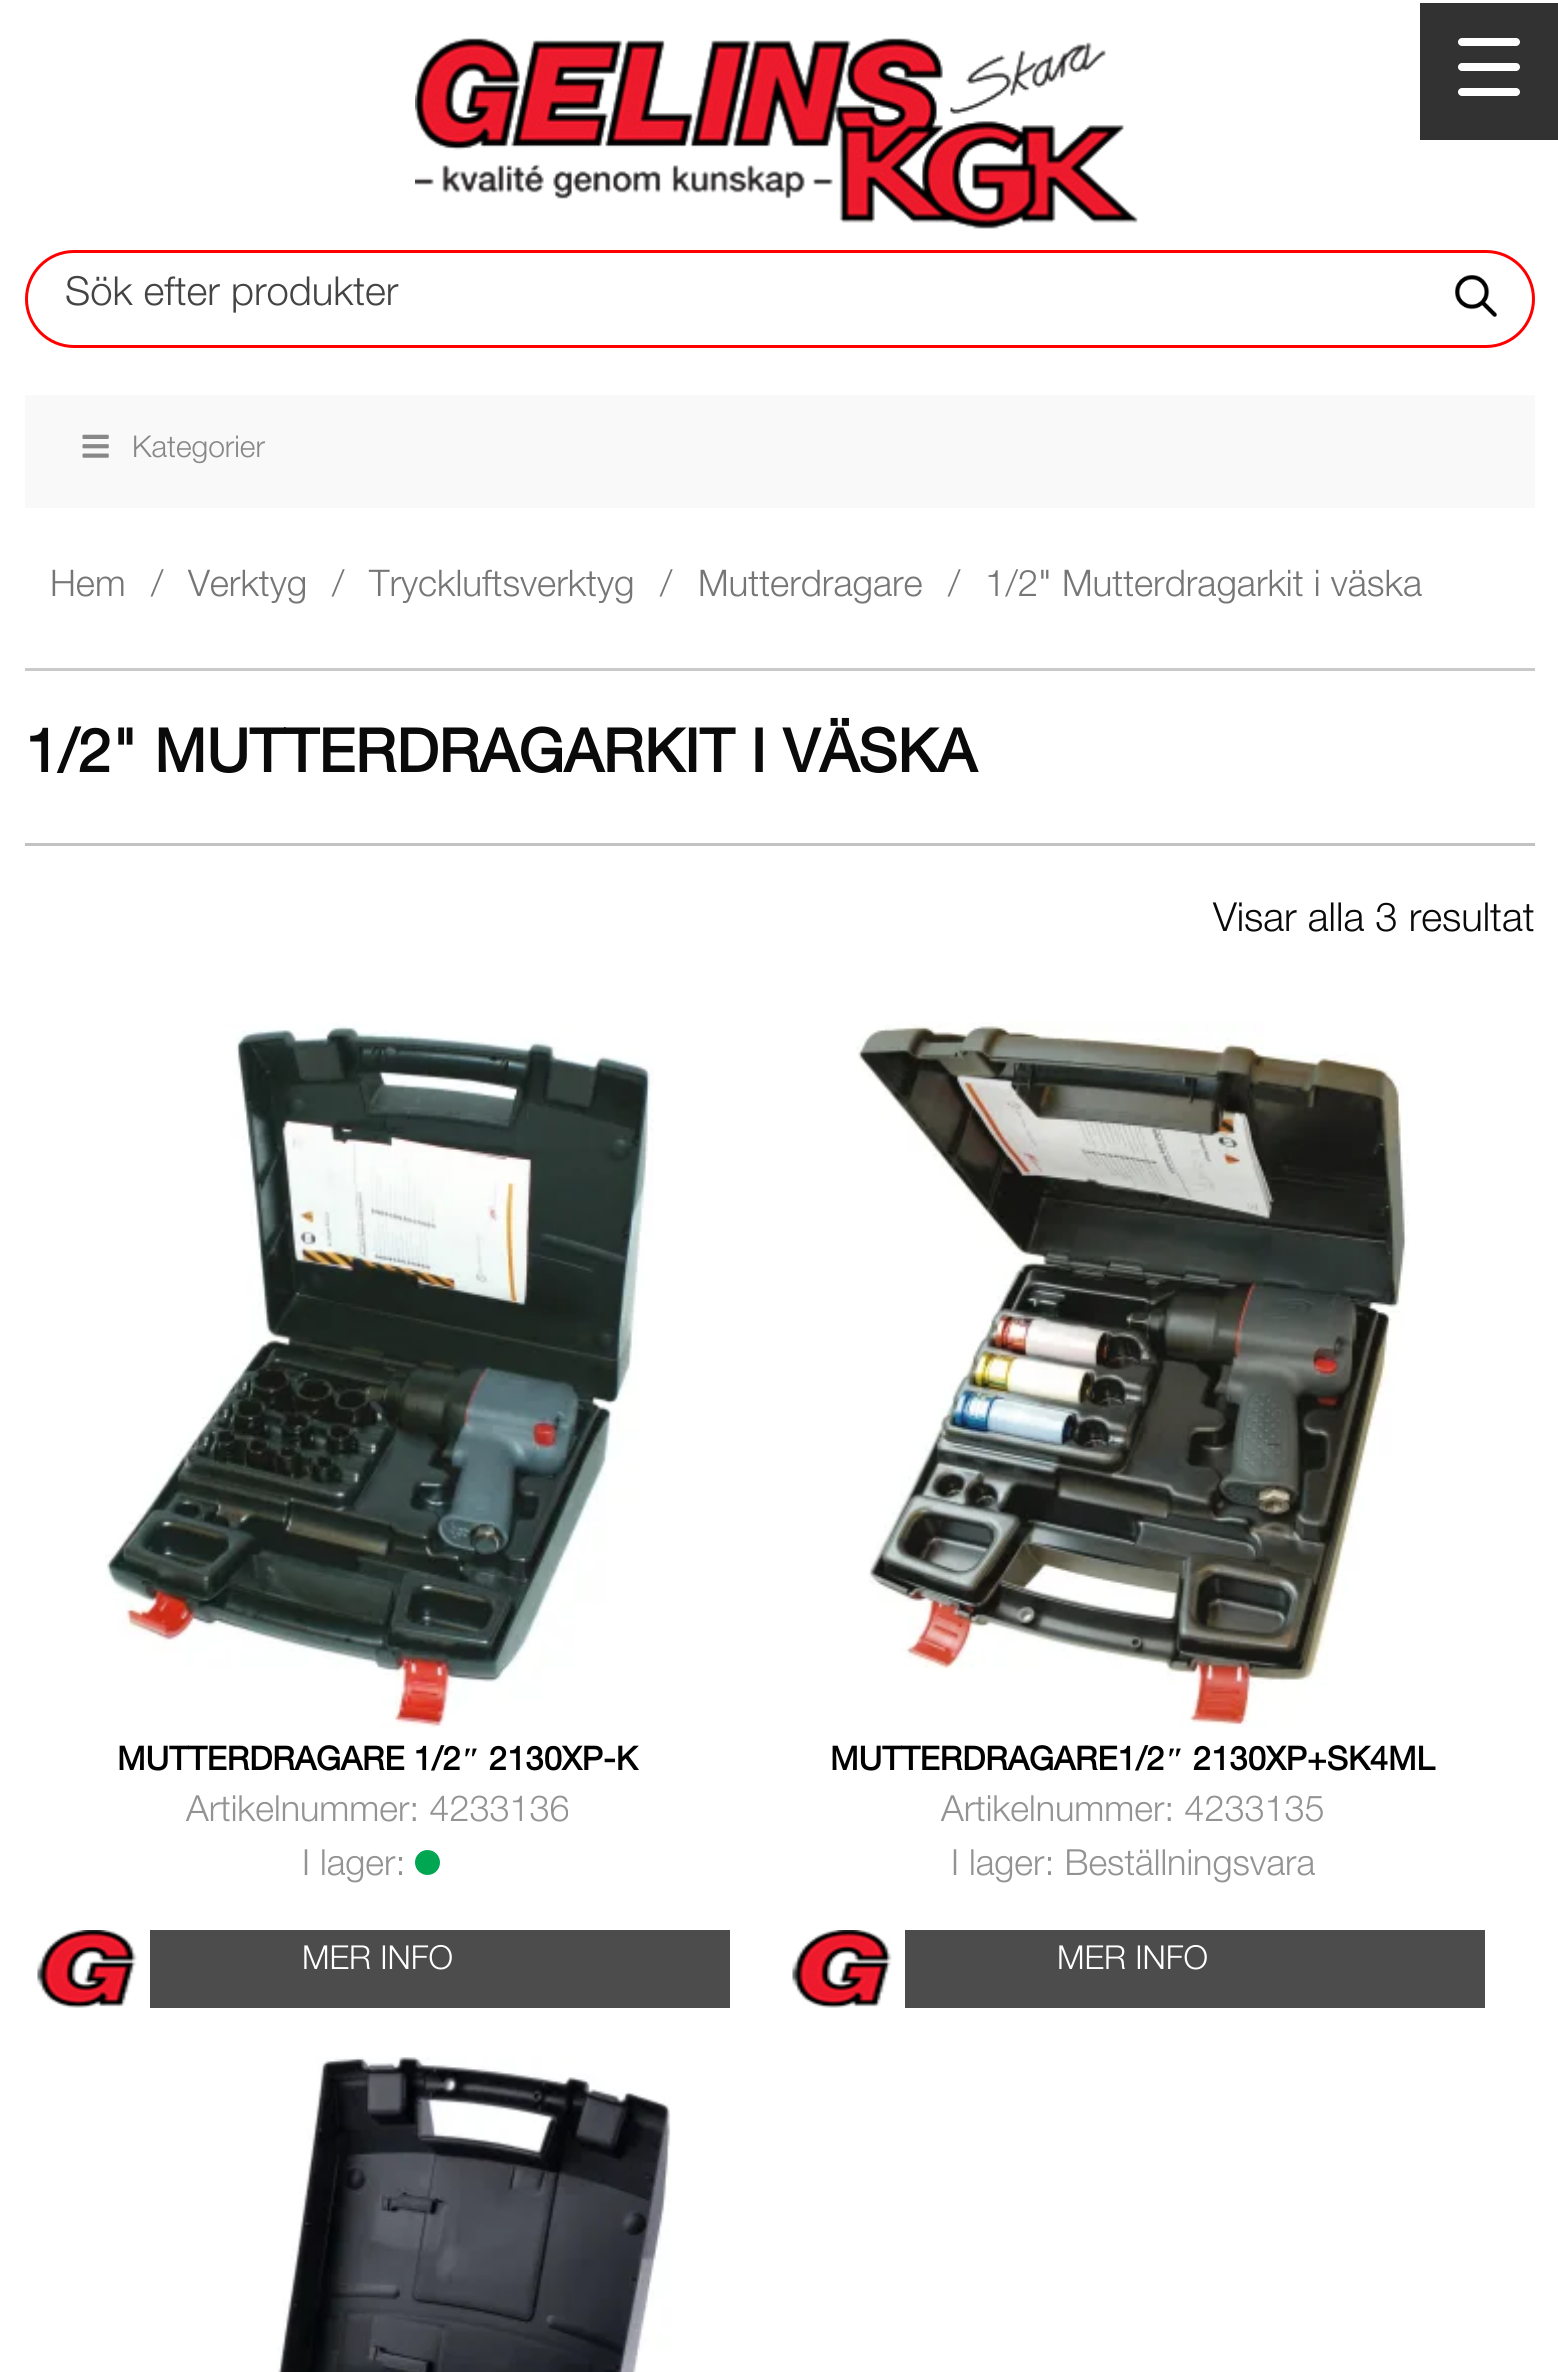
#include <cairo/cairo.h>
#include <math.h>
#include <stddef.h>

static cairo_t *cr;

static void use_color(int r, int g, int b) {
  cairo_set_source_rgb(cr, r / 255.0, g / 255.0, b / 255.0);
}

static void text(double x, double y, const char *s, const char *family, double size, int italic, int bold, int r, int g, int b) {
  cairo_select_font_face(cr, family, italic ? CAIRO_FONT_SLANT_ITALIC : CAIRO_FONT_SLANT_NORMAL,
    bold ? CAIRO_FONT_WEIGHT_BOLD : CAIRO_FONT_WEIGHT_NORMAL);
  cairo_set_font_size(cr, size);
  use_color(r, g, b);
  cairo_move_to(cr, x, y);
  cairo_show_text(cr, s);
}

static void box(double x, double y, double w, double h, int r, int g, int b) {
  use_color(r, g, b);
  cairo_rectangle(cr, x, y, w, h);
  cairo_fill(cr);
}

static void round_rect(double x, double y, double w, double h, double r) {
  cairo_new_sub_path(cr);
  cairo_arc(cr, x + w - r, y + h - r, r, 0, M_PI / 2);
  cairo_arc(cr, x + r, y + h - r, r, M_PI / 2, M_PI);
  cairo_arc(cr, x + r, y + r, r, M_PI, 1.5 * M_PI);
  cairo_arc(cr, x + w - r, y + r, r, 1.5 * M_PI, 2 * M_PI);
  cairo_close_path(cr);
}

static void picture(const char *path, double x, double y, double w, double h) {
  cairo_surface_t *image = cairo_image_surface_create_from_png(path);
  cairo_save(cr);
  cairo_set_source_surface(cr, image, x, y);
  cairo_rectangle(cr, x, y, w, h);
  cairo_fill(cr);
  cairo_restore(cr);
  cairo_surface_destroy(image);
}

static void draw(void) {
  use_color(255, 255, 255);
  cairo_paint(cr);
  box(1420, 3, 138, 137, 50, 50, 50);
  use_color(255, 255, 255);
  round_rect(1458, 63, 62, 8, 4);
  cairo_fill(cr);
  round_rect(1458, 38, 62, 8, 4);
  cairo_fill(cr);
  round_rect(1458, 88, 62, 8, 4);
  cairo_fill(cr);
  picture("img_01.png", 415, 38, 723, 191);
  round_rect(26.5, 251.5, 1507, 95, 47.5);
  use_color(255, 0, 0);
  cairo_set_line_width(cr, 3);
  cairo_stroke(cr);
  picture("img_02.png", 1455, 275, 42, 42);
  box(25, 395, 1510, 113, 249, 249, 249);
  picture("img_03.png", 82, 434, 27, 24);
  box(25, 668, 1510, 3, 202, 202, 202);
  box(25, 843, 1510, 3, 194, 194, 194);
  picture("img_04.png", 105, 1023, 549, 705);
  use_color(0, 166, 81);
  cairo_arc(cr, 427.5, 1862.5, 12.5, 0, 2 * M_PI);
  cairo_fill(cr);
  box(150, 1930, 580, 78, 76, 76, 76);
  picture("img_05.png", 37, 1930, 101, 78);
  picture("img_06.png", 856, 1022, 553, 705);
  box(905, 1930, 580, 78, 76, 76, 76);
  picture("img_05.png", 792, 1930, 101, 78);
  picture("img_07.png", 277, 2057, 394, 315);
  text(65, 305, "Sök efter produkter", "Helvetica Neue Light", 40, 0, 0, 68, 68, 68);
  text(132, 457, "Kategorier", "Helvetica Neue Light", 30, 0, 0, 136, 136, 136);
  text(50, 596, "Hem", "Helvetica Neue Light", 36.75, 0, 0, 118, 118, 118);
  text(151, 596, "/", "Helvetica Neue Light", 36.75, 0, 0, 118, 118, 118);
  text(188, 596, "Verktyg", "Helvetica Neue Light", 36.75, 0, 0, 118, 118, 118);
  text(332, 596, "/", "Helvetica Neue Light", 36.75, 0, 0, 118, 118, 118);
  text(369, 596, "Tryckluftsverktyg", "Helvetica Neue Light", 36.75, 0, 0, 118, 118, 118);
  text(660, 596, "/", "Helvetica Neue Light", 36.75, 0, 0, 118, 118, 118);
  text(698, 596, "Mutterdragare", "Helvetica Neue Light", 36.75, 0, 0, 118, 118, 118);
  text(948, 596, "/", "Helvetica Neue Light", 36.75, 0, 0, 118, 118, 118);
  text(985, 596, "1/2\" Mutterdragarkit i väska", "Helvetica Neue Light", 36.75, 0, 0, 118, 118, 118);
  text(25, 772, "1/2\" MUTTERDRAGARKIT I VÄSKA", "Helvetica Neue", 60, 0, 1, 10, 10, 10);
  text(1213, 931, "Visar alla 3 resultat", "Helvetica Neue Light", 40, 0, 0, 10, 10, 10);
  text(117, 1770, "MUTTERDRAGARE 1/2", "Helvetica Neue", 32.75, 0, 1, 1, 1, 1);
  text(462, 1770, "″", "Liberation Serif", 32.75, 0, 1, 1, 1, 1);
  text(489, 1770, "2130XP-K", "Helvetica Neue", 32.75, 0, 1, 1, 1, 1);
  text(186, 1821, "Artikelnummer: 4233136", "Helvetica Neue Light", 36, 0, 0, 147, 147, 147);
  text(302, 1875, "I lager:", "Helvetica Neue Light", 36, 0, 0, 147, 147, 147);
  text(302, 1969, "MER INFO", "Helvetica Neue Light", 33, 0, 0, 255, 255, 255);
  text(830, 1770, "MUTTERDRAGARE1/2", "Helvetica Neue", 32.75, 0, 1, 1, 1, 1);
  text(1166, 1770, "″", "Liberation Serif", 32.75, 0, 1, 1, 1, 1);
  text(1193, 1770, "2130XP+SK4ML", "Helvetica Neue", 32.75, 0, 1, 1, 1, 1);
  text(941, 1821, "Artikelnummer: 4233135", "Helvetica Neue Light", 36, 0, 0, 147, 147, 147);
  text(951, 1875, "I lager: Beställningsvara", "Helvetica Neue Light", 36, 0, 0, 147, 147, 147);
  text(1057, 1969, "MER INFO", "Helvetica Neue Light", 33, 0, 0, 255, 255, 255);
}

int main(void) {
  cairo_surface_t *surface = cairo_image_surface_create(CAIRO_FORMAT_RGB24, 1558, 2372);
  cr = cairo_create(surface);
  cairo_font_options_t *options = cairo_font_options_create();
  cairo_font_options_set_hint_metrics(options, CAIRO_HINT_METRICS_OFF);
  cairo_font_options_set_hint_style(options, CAIRO_HINT_STYLE_NONE);
  cairo_set_font_options(cr, options);
  cairo_set_miter_limit(cr, 4);
  draw();
  cairo_surface_write_to_png(surface, "out.png");
  cairo_font_options_destroy(options);
  cairo_destroy(cr);
  cairo_surface_destroy(surface);
  return 0;
}
